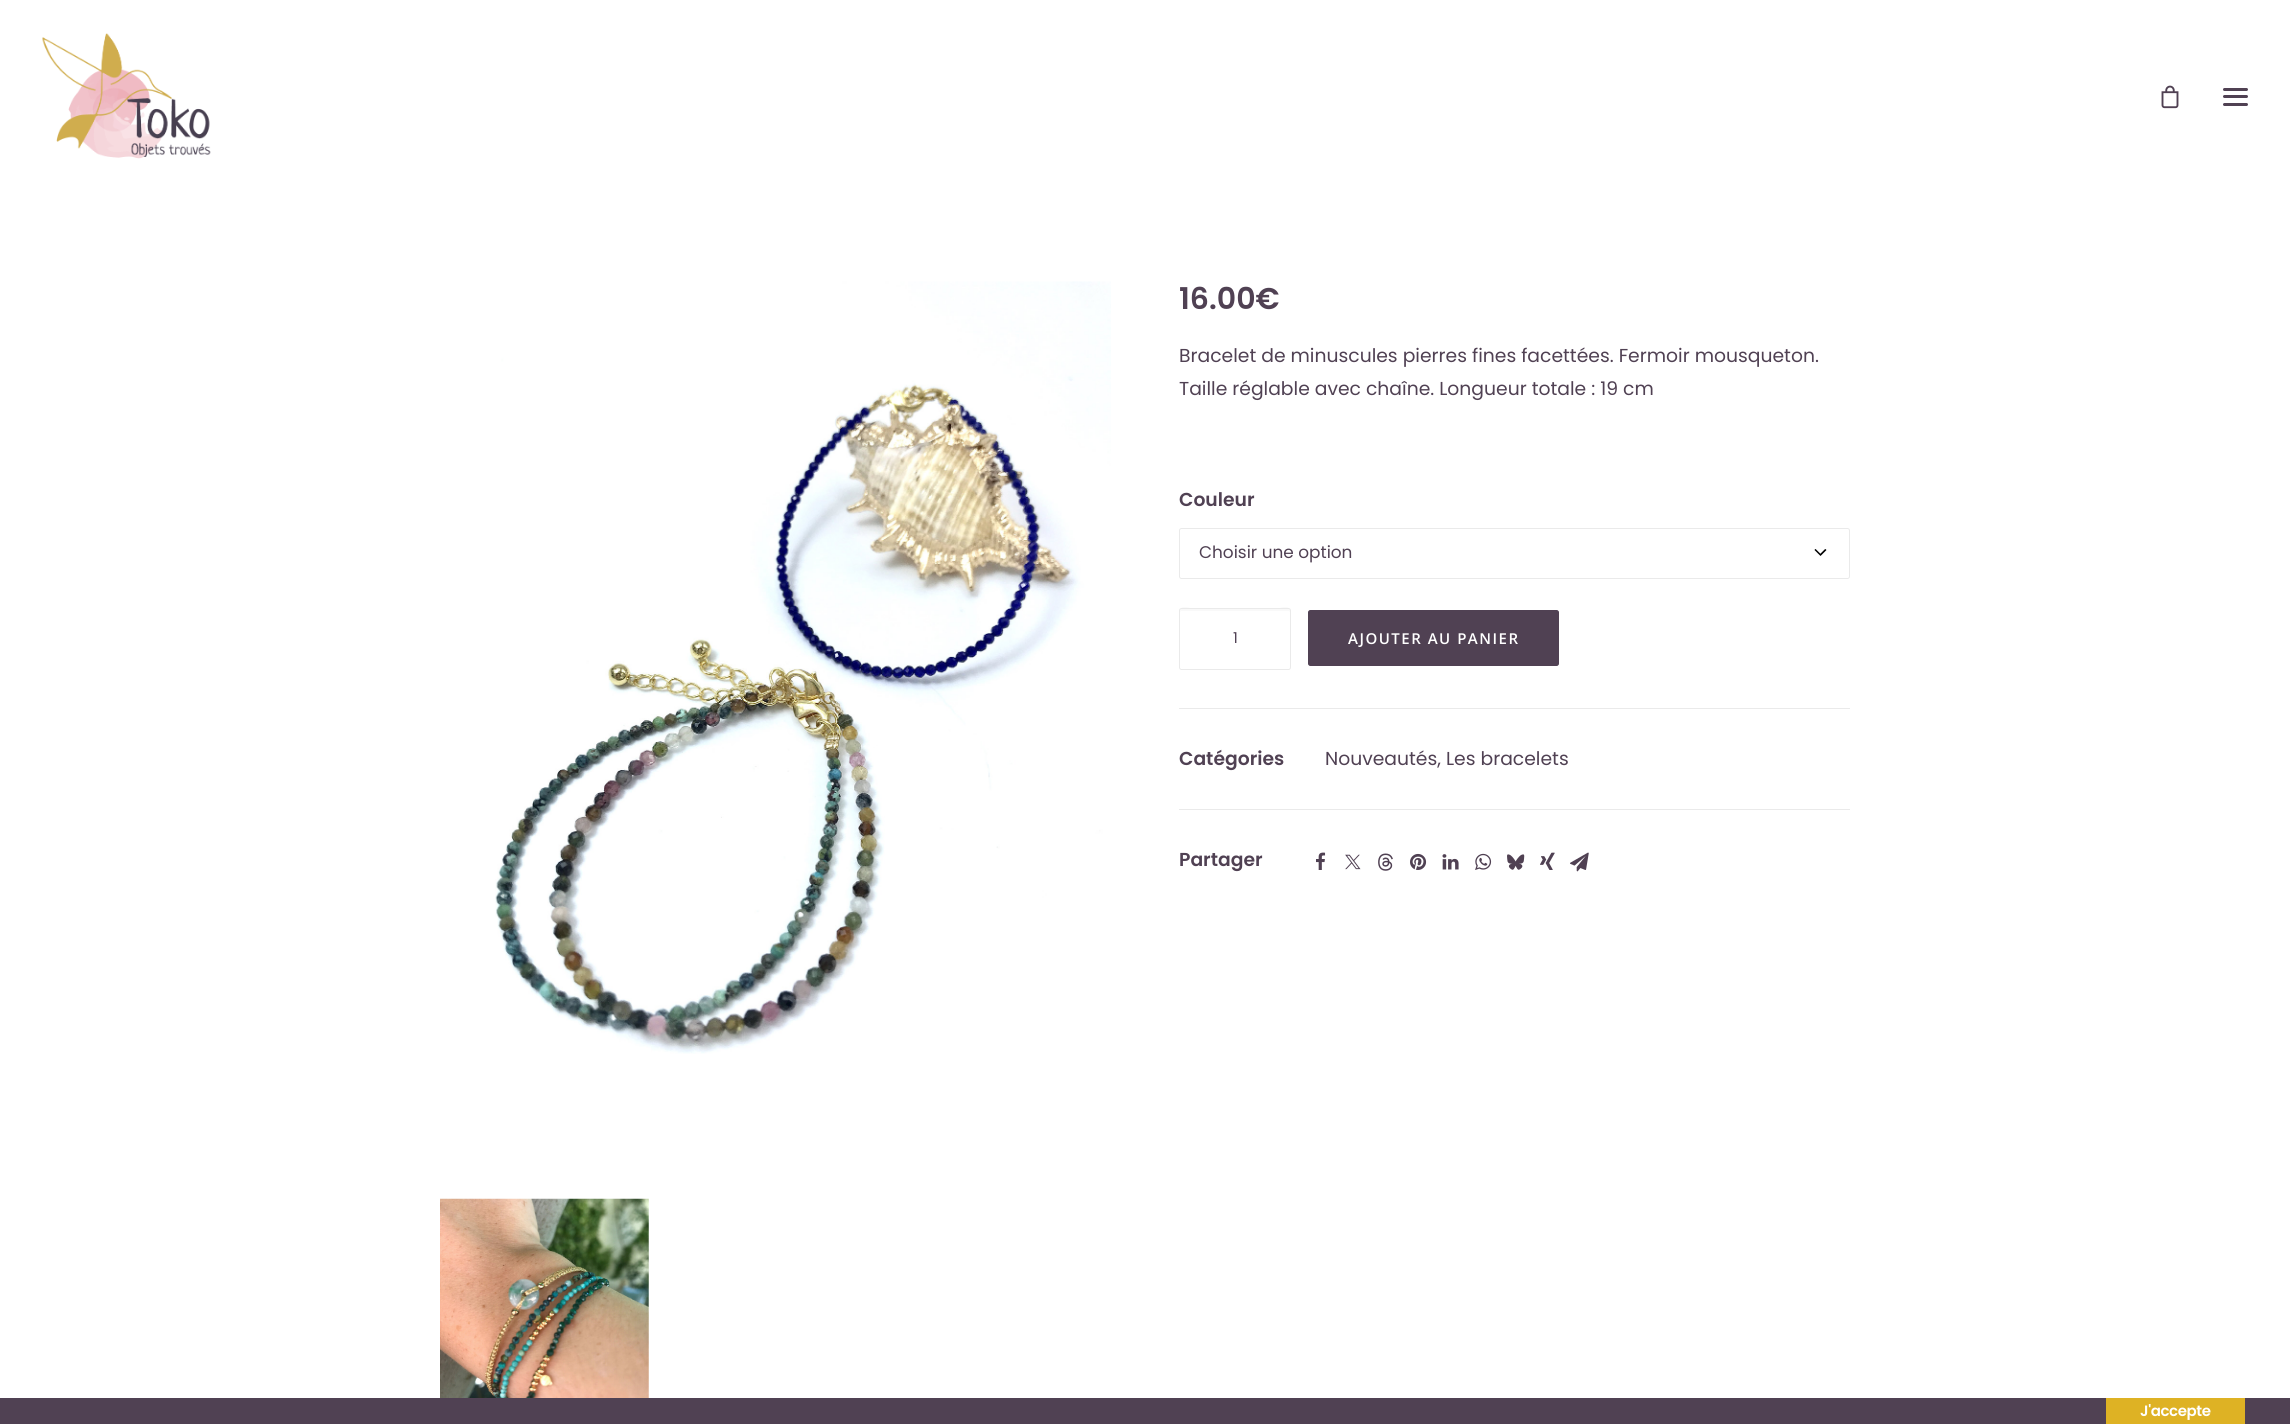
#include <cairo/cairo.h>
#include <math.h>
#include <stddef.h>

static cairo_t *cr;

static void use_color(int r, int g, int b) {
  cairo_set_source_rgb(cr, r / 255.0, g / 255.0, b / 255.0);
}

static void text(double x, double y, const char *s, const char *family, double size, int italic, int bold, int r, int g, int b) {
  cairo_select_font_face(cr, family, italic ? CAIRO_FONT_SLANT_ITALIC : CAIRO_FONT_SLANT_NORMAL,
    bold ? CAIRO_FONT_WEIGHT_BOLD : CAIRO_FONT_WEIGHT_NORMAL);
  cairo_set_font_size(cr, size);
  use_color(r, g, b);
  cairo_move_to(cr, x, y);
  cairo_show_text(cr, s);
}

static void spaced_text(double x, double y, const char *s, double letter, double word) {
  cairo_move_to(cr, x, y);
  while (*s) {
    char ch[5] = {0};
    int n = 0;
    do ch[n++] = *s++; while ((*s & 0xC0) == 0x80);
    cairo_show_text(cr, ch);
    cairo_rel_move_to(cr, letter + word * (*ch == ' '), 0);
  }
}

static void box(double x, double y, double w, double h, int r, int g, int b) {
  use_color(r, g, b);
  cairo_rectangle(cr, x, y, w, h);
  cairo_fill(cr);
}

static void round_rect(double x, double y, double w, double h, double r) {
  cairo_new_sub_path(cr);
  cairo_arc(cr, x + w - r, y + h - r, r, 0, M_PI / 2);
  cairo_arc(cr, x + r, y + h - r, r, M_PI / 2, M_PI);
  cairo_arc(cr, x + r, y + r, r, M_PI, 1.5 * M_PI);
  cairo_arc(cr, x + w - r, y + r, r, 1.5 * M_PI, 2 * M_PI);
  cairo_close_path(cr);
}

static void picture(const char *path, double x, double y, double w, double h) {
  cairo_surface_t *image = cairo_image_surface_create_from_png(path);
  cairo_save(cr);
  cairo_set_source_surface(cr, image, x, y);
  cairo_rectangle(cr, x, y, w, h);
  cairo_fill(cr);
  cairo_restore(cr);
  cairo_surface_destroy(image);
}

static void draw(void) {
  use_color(255, 255, 255);
  cairo_paint(cr);
  picture("img_01.png", 42, 33, 169, 126);
  picture("img_02.png", 2161, 85, 18, 24);
  use_color(80, 65, 83);
  round_rect(2223, 95, 25, 3, 1.5);
  cairo_fill(cr);
  round_rect(2223, 88, 25, 3, 1.5);
  cairo_fill(cr);
  round_rect(2223, 103, 25, 3, 1.5);
  cairo_fill(cr);
  picture("img_03.png", 495, 281, 616, 773);
  picture("img_04.png", 440, 1198, 209, 200);
  picture("img_05.png", 1814, 549, 13, 7);
  round_rect(1179.5, 528.5, 670, 50, 2);
  use_color(234, 234, 234);
  cairo_set_line_width(cr, 1);
  cairo_stroke(cr);
  use_color(249, 249, 249);
  cairo_new_path(cr);
  cairo_move_to(cr, 1181, 611);
  cairo_line_to(cr, 1289, 611);
  cairo_line_to(cr, 1290, 612);
  cairo_curve_to(cr, 1290, 603, 1281, 609, 1271, 609);
  cairo_line_to(cr, 1199, 609);
  cairo_curve_to(cr, 1189, 609, 1180, 603, 1180, 612);
  cairo_close_path(cr);
  cairo_fill(cr);
  round_rect(1179.5, 608.5, 111, 61, 2);
  use_color(234, 234, 234);
  cairo_stroke(cr);
  use_color(80, 65, 83);
  round_rect(1308.5, 610.5, 250, 55, 2);
  cairo_fill_preserve(cr);
  cairo_stroke(cr);
  box(1179, 708, 671, 1, 234, 234, 234);
  box(1179, 809, 671, 1, 234, 234, 234);
  picture("img_06.png", 1316, 852, 10, 18);
  picture("img_07.png", 1345, 854, 16, 16);
  picture("img_08.png", 1378, 853, 15, 18);
  picture("img_09.png", 1410, 853, 17, 17);
  picture("img_10.png", 1442, 854, 17, 16);
  picture("img_11.png", 1475, 853, 17, 17);
  picture("img_12.png", 1507, 854, 18, 16);
  picture("img_13.png", 1540, 852, 15, 18);
  picture("img_14.png", 1570, 852, 19, 20);
  box(0, 1398, 2290, 26, 80, 65, 83);
  box(2106, 1398, 139, 26, 222, 178, 36);
  text(1179, 309, "16.00€", "Poppins SemiBold", 30, 0, 0, 80, 65, 83);
  text(1179, 362, "Bracelet de minuscules pierres fines facettées. Fermoir mousqueton.", "Poppins", 18.75, 0, 0, 80, 65, 83);
  text(1179, 395, "Taille réglable avec chaîne. Longueur totale : 19 cm", "Poppins", 18.75, 0, 0, 80, 65, 83);
  text(1179, 506, "Couleur", "Poppins SemiBold", 18.75, 0, 0, 80, 65, 83);
  text(1199, 558, "Choisir une option", "Poppins", 16.9, 0, 0, 80, 65, 83);
  text(1233, 643, "1", "Poppins", 15, 0, 0, 80, 65, 83);
  cairo_select_font_face(cr, "Open Sans SemiBold", CAIRO_FONT_SLANT_NORMAL, CAIRO_FONT_WEIGHT_NORMAL);
  use_color(255, 255, 255);
  spaced_text(1348, 644, "AJOUTER AU PANIER", 1.5, 0);
  text(1179, 765, "Catégories", "Poppins SemiBold", 18.75, 0, 0, 80, 65, 83);
  text(1325, 765, "Nouveautés, Les bracelets", "Poppins", 18.75, 0, 0, 80, 65, 83);
  text(1179, 866, "Partager", "Poppins SemiBold", 18.75, 0, 0, 80, 65, 83);
  cairo_set_font_size(cr, 15);
  use_color(255, 255, 255);
  spaced_text(2140, 1416, "J'accepte", -0.4, 0);
}

int main(void) {
  cairo_surface_t *surface = cairo_image_surface_create(CAIRO_FORMAT_RGB24, 2290, 1424);
  cr = cairo_create(surface);
  cairo_font_options_t *options = cairo_font_options_create();
  cairo_font_options_set_hint_metrics(options, CAIRO_HINT_METRICS_OFF);
  cairo_font_options_set_hint_style(options, CAIRO_HINT_STYLE_NONE);
  cairo_set_font_options(cr, options);
  cairo_set_miter_limit(cr, 4);
  draw();
  cairo_surface_write_to_png(surface, "out.png");
  cairo_font_options_destroy(options);
  cairo_destroy(cr);
  cairo_surface_destroy(surface);
  return 0;
}
